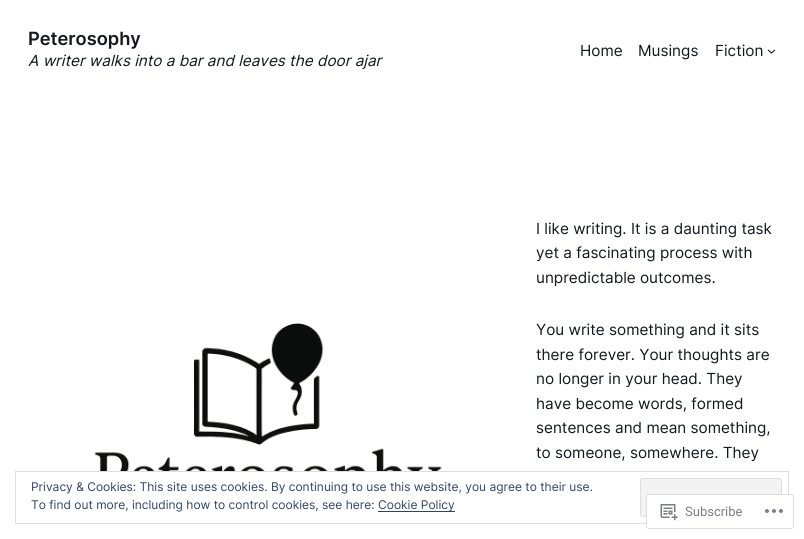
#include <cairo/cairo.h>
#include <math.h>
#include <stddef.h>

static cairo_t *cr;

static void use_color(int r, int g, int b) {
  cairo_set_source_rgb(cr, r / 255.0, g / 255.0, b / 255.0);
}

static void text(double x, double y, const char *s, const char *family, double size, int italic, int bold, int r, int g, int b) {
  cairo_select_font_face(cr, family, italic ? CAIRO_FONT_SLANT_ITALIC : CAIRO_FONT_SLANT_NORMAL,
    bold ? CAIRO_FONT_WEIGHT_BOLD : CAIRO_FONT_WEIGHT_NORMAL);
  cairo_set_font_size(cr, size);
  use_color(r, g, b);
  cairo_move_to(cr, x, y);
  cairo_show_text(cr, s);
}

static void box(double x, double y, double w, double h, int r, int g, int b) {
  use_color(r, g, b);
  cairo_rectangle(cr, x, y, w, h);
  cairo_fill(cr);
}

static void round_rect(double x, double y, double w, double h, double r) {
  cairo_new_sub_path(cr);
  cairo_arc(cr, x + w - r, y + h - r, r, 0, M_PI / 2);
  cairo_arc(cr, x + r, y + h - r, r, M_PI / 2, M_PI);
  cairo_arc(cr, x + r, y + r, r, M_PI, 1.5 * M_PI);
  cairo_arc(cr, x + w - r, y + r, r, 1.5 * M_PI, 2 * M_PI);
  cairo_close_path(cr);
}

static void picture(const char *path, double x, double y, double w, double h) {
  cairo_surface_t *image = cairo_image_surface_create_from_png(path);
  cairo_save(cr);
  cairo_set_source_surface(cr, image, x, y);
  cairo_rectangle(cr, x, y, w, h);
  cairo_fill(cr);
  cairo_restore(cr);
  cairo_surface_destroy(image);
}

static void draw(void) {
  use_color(255, 255, 255);
  cairo_paint(cr);
  cairo_new_path(cr);
  cairo_move_to(cr, 768, 50);
  cairo_line_to(cr, 771.5, 53);
  cairo_line_to(cr, 775, 50);
  use_color(17, 24, 31);
  cairo_set_line_width(cr, 1.1);
  cairo_stroke(cr);
  picture("img_01.png", 94, 323, 348, 148);
  cairo_rectangle(cr, 15.5, 471.5, 773, 52);
  use_color(222, 222, 222);
  cairo_set_line_width(cr, 1);
  cairo_stroke(cr);
  use_color(243, 243, 243);
  round_rect(640.5, 478.5, 141, 38, 2.5);
  cairo_fill_preserve(cr);
  use_color(222, 222, 222);
  cairo_stroke(cr);
  box(378, 511, 77, 1, 46, 68, 103);
  cairo_set_source_rgba(cr, 1, 1, 1, 0.98);
  round_rect(646, 494, 148, 35, 3);
  cairo_fill(cr);
  round_rect(646.5, 494.5, 147, 34, 2.5);
  cairo_set_source_rgba(cr, 0.863, 0.863, 0.871, 0.98);
  cairo_stroke(cr);
  picture("img_02.png", 660, 504, 18, 17);
  picture("img_03.png", 765, 509, 18, 4);
  text(28, 45, "Peterosophy", "Inter SemiBold", 18.25, 0, 0, 17, 24, 31);
  text(28, 66, "A writer walks into a bar and leaves the door ajar", "Inter", 15.3, 1, 0, 17, 24, 31);
  text(580, 56, "Home", "Inter", 15.3, 0, 0, 17, 24, 31);
  text(638, 56, "Musings", "Inter", 15.3, 0, 0, 17, 24, 31);
  text(715, 56, "Fiction", "Inter", 15.3, 0, 0, 17, 24, 31);
  text(536, 234, "I like writing. It is a daunting task", "Inter", 15.3, 0, 0, 17, 24, 31);
  text(536, 258, "yet a fascinating process with", "Inter", 15.3, 0, 0, 17, 24, 31);
  text(536, 283, "unpredictable outcomes.", "Inter", 15.3, 0, 0, 17, 24, 31);
  text(536, 335, "You write something and it sits", "Inter", 15.3, 0, 0, 17, 24, 31);
  text(536, 360, "there forever. Your thoughts are", "Inter", 15.3, 0, 0, 17, 24, 31);
  text(536, 384, "no longer in your head. They", "Inter", 15.3, 0, 0, 17, 24, 31);
  text(536, 409, "have become words, formed", "Inter", 15.3, 0, 0, 17, 24, 31);
  text(536, 433, "sentences and mean something,", "Inter", 15.3, 0, 0, 17, 24, 31);
  text(536, 458, "to someone, somewhere. They", "Inter", 15.3, 0, 0, 17, 24, 31);
  text(31, 491, "Privacy & Cookies: This site uses cookies. By continuing to use this website, you agree to their use.", "Inter", 12, 0, 0, 46, 68, 103);
  text(31, 509, "To find out more, including how to control cookies, see here:", "Inter", 12, 0, 0, 46, 68, 103);
  text(378, 509, "Cookie Policy", "Inter", 12, 0, 0, 46, 68, 103);
  text(685, 516, "Subscribe", "Roboto", 13, 0, 0, 123, 127, 132);
}

int main(void) {
  cairo_surface_t *surface = cairo_image_surface_create(CAIRO_FORMAT_RGB24, 804, 539);
  cr = cairo_create(surface);
  cairo_font_options_t *options = cairo_font_options_create();
  cairo_font_options_set_hint_metrics(options, CAIRO_HINT_METRICS_OFF);
  cairo_font_options_set_hint_style(options, CAIRO_HINT_STYLE_NONE);
  cairo_set_font_options(cr, options);
  cairo_set_miter_limit(cr, 4);
  draw();
  cairo_surface_write_to_png(surface, "out.png");
  cairo_font_options_destroy(options);
  cairo_destroy(cr);
  cairo_surface_destroy(surface);
  return 0;
}
